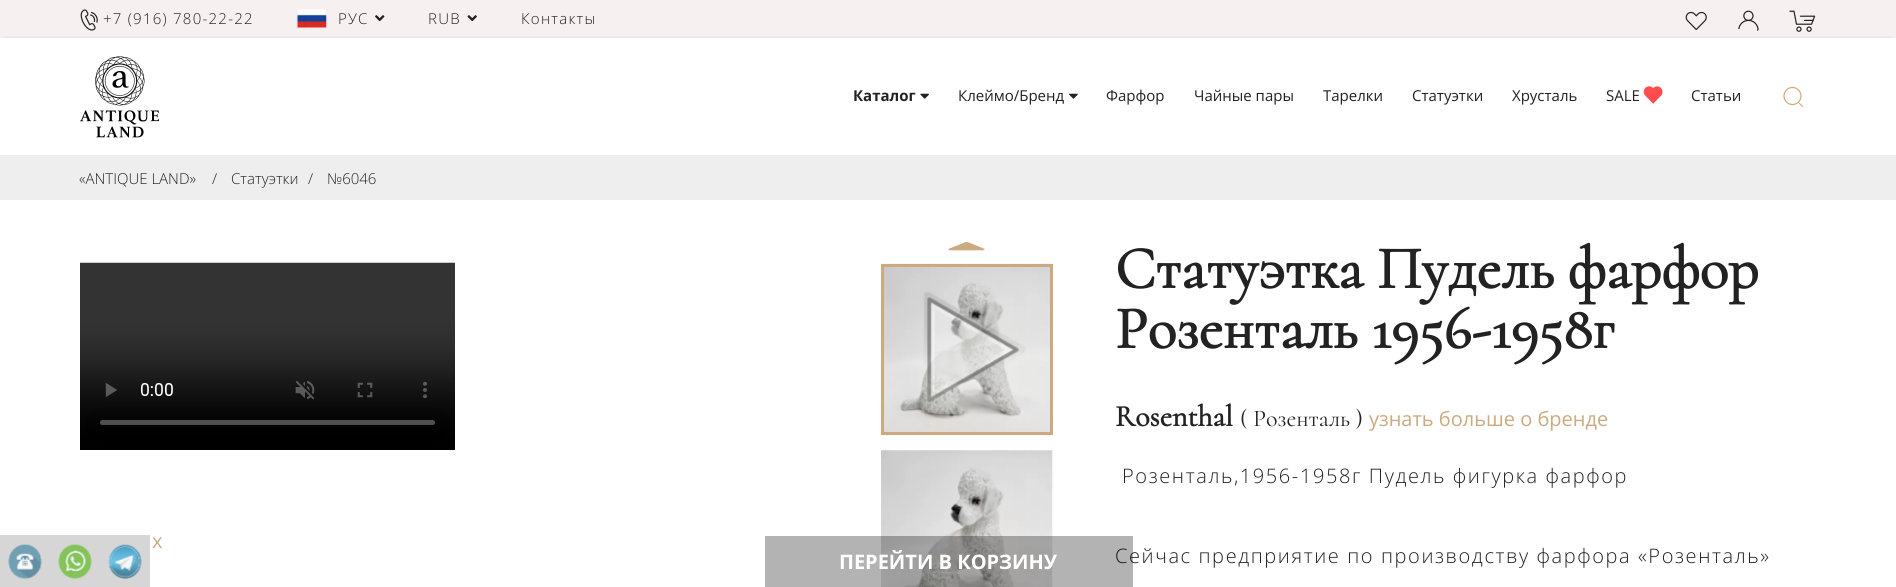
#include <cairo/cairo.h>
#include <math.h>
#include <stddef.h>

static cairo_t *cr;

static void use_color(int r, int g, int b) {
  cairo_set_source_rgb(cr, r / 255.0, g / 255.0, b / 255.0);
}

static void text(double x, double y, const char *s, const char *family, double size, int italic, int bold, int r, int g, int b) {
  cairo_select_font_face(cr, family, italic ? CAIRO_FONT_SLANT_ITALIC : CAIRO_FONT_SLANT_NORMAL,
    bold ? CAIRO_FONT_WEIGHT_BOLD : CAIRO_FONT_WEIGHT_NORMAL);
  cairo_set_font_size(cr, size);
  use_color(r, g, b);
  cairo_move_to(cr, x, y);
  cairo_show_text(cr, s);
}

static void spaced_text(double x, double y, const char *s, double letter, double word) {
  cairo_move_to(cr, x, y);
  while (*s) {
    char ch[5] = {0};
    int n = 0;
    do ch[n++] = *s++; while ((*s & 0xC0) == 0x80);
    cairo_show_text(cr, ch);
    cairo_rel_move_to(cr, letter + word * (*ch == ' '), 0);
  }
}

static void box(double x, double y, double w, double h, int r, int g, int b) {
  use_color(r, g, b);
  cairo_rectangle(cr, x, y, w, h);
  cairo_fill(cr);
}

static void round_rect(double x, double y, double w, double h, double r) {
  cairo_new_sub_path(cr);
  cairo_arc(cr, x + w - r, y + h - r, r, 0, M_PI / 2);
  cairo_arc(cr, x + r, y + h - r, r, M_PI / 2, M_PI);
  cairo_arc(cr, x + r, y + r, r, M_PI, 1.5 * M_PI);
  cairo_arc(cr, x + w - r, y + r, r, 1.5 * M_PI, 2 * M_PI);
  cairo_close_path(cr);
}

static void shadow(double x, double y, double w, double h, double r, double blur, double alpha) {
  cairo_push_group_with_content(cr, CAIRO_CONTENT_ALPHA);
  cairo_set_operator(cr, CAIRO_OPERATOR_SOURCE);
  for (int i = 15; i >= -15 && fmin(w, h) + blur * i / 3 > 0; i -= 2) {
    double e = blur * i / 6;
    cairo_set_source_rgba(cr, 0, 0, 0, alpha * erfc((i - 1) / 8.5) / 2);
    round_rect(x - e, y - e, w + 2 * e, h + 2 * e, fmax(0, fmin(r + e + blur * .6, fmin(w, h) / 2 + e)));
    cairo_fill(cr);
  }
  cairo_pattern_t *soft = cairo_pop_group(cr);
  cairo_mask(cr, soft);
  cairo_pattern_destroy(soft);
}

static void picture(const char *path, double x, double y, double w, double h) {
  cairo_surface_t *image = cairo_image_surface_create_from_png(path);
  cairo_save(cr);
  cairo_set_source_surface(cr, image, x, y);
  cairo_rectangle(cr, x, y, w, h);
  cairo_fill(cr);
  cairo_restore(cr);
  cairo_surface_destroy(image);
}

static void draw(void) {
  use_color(255, 255, 255);
  cairo_paint(cr);
  box(0, 0, 1896, 38, 247, 240, 240);
  picture("img_01.png", 80, 9, 18, 22);
  cairo_rectangle(cr, 296.5, 8.5, 31, 20);
  use_color(238, 238, 238);
  cairo_set_line_width(cr, 1);
  cairo_stroke(cr);
  picture("img_02.png", 297, 8, 30, 20);
  picture("img_03.png", 375, 15, 10, 7);
  picture("img_04.png", 467, 15, 10, 7);
  picture("img_05.png", 1685, 11, 22, 19);
  picture("img_06.png", 1738, 10, 21, 21);
  cairo_save(cr);
  cairo_rectangle(cr, 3, 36, 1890, 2);
  cairo_clip(cr);
  use_color(0, 0, 0);
  shadow(0, 41, 1896, 118, 0, 3, 0.36);
  cairo_restore(cr);
  picture("img_07.png", 1789, 10, 27, 22);
  picture("img_08.png", 80, 56, 79, 82);
  picture("img_09.png", 920, 93, 9, 6);
  picture("img_10.png", 1069, 93, 9, 6);
  picture("img_11.png", 1643, 86, 20, 18);
  cairo_arc(cr, 1792.5, 96, 8.5, 0, 2 * M_PI);
  use_color(203, 170, 128);
  cairo_set_line_width(cr, 1.2);
  cairo_stroke(cr);
  cairo_new_path(cr);
  cairo_move_to(cr, 1799.5, 103.5);
  cairo_line_to(cr, 1802.5, 106.5);
  cairo_set_line_cap(cr, CAIRO_LINE_CAP_ROUND);
  cairo_set_line_join(cr, CAIRO_LINE_JOIN_ROUND);
  cairo_stroke(cr);
  box(0, 155, 1896, 45, 238, 238, 238);
  box(0, 535, 150, 52, 214, 214, 214);
  picture("img_12.png", 8, 544, 34, 35);
  picture("img_13.png", 58, 544, 34, 35);
  picture("img_14.png", 108, 544, 34, 35);
  picture("img_15.png", 948, 242, 37, 9);
  picture("img_16.png", 80, 262, 375, 188);
  picture("img_17.png", 881, 263, 172, 173);
  cairo_rectangle(cr, 882.5, 265.5, 169, 168);
  use_color(203, 170, 128);
  cairo_set_line_width(cr, 3);
  cairo_set_line_cap(cr, CAIRO_LINE_CAP_BUTT);
  cairo_set_line_join(cr, CAIRO_LINE_JOIN_MITER);
  cairo_stroke(cr);
  picture("img_18.png", 881, 450, 172, 137);
  cairo_select_font_face(cr, "Open Sans Light", CAIRO_FONT_SLANT_NORMAL, CAIRO_FONT_WEIGHT_NORMAL);
  cairo_set_font_size(cr, 15);
  use_color(34, 34, 34);
  spaced_text(103, 24, "+7 (916) 780-22-22", 1.25, 0);
  spaced_text(338, 24, "РУС", 1.25, 0);
  spaced_text(428, 24, "RUB", 1.25, 0);
  spaced_text(521, 24, "Контакты", 1.25, 0);
  text(853, 101, "Каталог", "Open Sans", 15, 0, 1, 34, 34, 34);
  text(958, 101, "Клеймо/Бренд", "Open Sans", 15, 0, 0, 34, 34, 34);
  text(1106, 101, "Фарфор", "Open Sans", 15, 0, 0, 34, 34, 34);
  text(1194, 101, "Чайные пары", "Open Sans", 15, 0, 0, 34, 34, 34);
  text(1323, 101, "Тарелки", "Open Sans", 15, 0, 0, 34, 34, 34);
  text(1412, 101, "Статуэтки", "Open Sans", 15, 0, 0, 34, 34, 34);
  text(1512, 101, "Хрусталь", "Open Sans", 15, 0, 0, 34, 34, 34);
  text(1606, 101, "SALE", "Open Sans", 15, 0, 0, 34, 34, 34);
  text(1691, 101, "Статьи", "Open Sans", 15, 0, 0, 34, 34, 34);
  text(79, 184, "«ANTIQUE LAND»", "Open Sans Light", 15, 0, 0, 34, 34, 34);
  text(212, 184, "/", "Open Sans Light", 15, 0, 0, 34, 34, 34);
  text(231, 184, "Статуэтки", "Open Sans Light", 15, 0, 0, 34, 34, 34);
  text(308, 184, "/", "Open Sans Light", 15, 0, 0, 34, 34, 34);
  text(327, 184, "№6046", "Open Sans Light", 15, 0, 0, 34, 34, 34);
  text(152, 548, "x", "Open Sans", 20, 0, 0, 203, 170, 128);
  text(1115, 288, "Статуэтка Пудель фарфор", "Cormorant", 60, 0, 1, 34, 34, 34);
  text(1115, 348, "Розенталь 1956-1958г", "Cormorant", 60, 0, 1, 34, 34, 34);
  text(1115, 426, "Rosenthal", "Cormorant", 30, 0, 1, 34, 34, 34);
  text(1240, 426, "( Розенталь )", "Cormorant", 24, 0, 0, 34, 34, 34);
  text(1369, 426, "узнать больше о бренде", "Open Sans", 20, 0, 0, 203, 170, 128);
  cairo_select_font_face(cr, "Open Sans Light", CAIRO_FONT_SLANT_NORMAL, CAIRO_FONT_WEIGHT_NORMAL);
  use_color(34, 34, 34);
  spaced_text(1122, 483, "Розенталь,1956-1958г Пудель фигурка фарфор", 1.6, 0);
  spaced_text(1115, 563, "Сейчас предприятие по производству фарфора «Розенталь»", 1.6, 0);
  cairo_set_source_rgba(cr, 0, 0, 0, 0.3);
  cairo_rectangle(cr, 765, 536, 368, 51);
  cairo_fill(cr);
  text(839, 569, "ПЕРЕЙТИ В КОРЗИНУ", "Open Sans", 20, 0, 1, 255, 255, 255);
}

int main(void) {
  cairo_surface_t *surface = cairo_image_surface_create(CAIRO_FORMAT_RGB24, 1896, 587);
  cr = cairo_create(surface);
  cairo_font_options_t *options = cairo_font_options_create();
  cairo_font_options_set_hint_metrics(options, CAIRO_HINT_METRICS_OFF);
  cairo_font_options_set_hint_style(options, CAIRO_HINT_STYLE_NONE);
  cairo_set_font_options(cr, options);
  cairo_set_miter_limit(cr, 4);
  draw();
  cairo_surface_write_to_png(surface, "out.png");
  cairo_font_options_destroy(options);
  cairo_destroy(cr);
  cairo_surface_destroy(surface);
  return 0;
}
